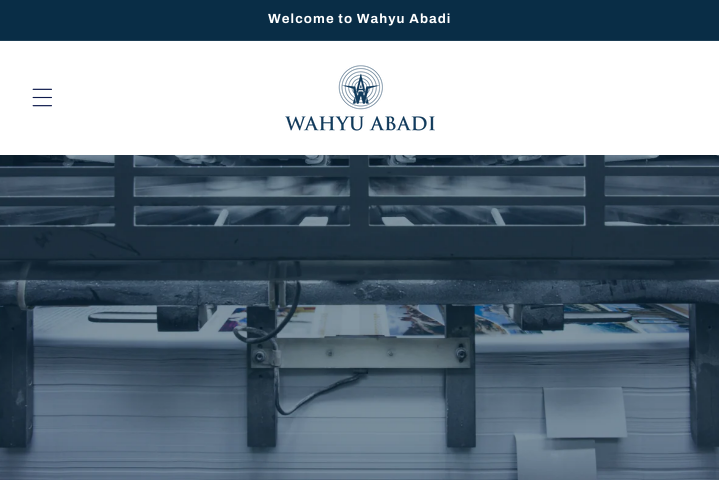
#include <cairo/cairo.h>
#include <math.h>
#include <stddef.h>

static cairo_t *cr;

static void use_color(int r, int g, int b) {
  cairo_set_source_rgb(cr, r / 255.0, g / 255.0, b / 255.0);
}

static void spaced_text(double x, double y, const char *s, double letter, double word) {
  cairo_move_to(cr, x, y);
  while (*s) {
    char ch[5] = {0};
    int n = 0;
    do ch[n++] = *s++; while ((*s & 0xC0) == 0x80);
    cairo_show_text(cr, ch);
    cairo_rel_move_to(cr, letter + word * (*ch == ' '), 0);
  }
}

static void box(double x, double y, double w, double h, int r, int g, int b) {
  use_color(r, g, b);
  cairo_rectangle(cr, x, y, w, h);
  cairo_fill(cr);
}

static void picture(const char *path, double x, double y, double w, double h) {
  cairo_surface_t *image = cairo_image_surface_create_from_png(path);
  cairo_save(cr);
  cairo_set_source_surface(cr, image, x, y);
  cairo_rectangle(cr, x, y, w, h);
  cairo_fill(cr);
  cairo_restore(cr);
  cairo_surface_destroy(image);
}

static void draw(void) {
  use_color(255, 255, 255);
  cairo_paint(cr);
  box(0, 0, 719, 40, 9, 45, 70);
  box(0, 40, 719, 1, 29, 62, 85);
  picture("img_01.png", 32, 88, 20, 19);
  picture("img_02.png", 285, 65, 150, 66);
  picture("img_03.png", 0, 155, 719, 325);
  cairo_select_font_face(cr, "Archivo", CAIRO_FONT_SLANT_NORMAL, CAIRO_FONT_WEIGHT_BOLD);
  cairo_set_font_size(cr, 13.25);
  use_color(255, 255, 255);
  spaced_text(268, 23, "Welcome to Wahyu Abadi", 1.05, 0);
}

int main(void) {
  cairo_surface_t *surface = cairo_image_surface_create(CAIRO_FORMAT_RGB24, 719, 480);
  cr = cairo_create(surface);
  cairo_font_options_t *options = cairo_font_options_create();
  cairo_font_options_set_hint_metrics(options, CAIRO_HINT_METRICS_OFF);
  cairo_font_options_set_hint_style(options, CAIRO_HINT_STYLE_NONE);
  cairo_set_font_options(cr, options);
  cairo_set_miter_limit(cr, 4);
  draw();
  cairo_surface_write_to_png(surface, "out.png");
  cairo_font_options_destroy(options);
  cairo_destroy(cr);
  cairo_surface_destroy(surface);
  return 0;
}
